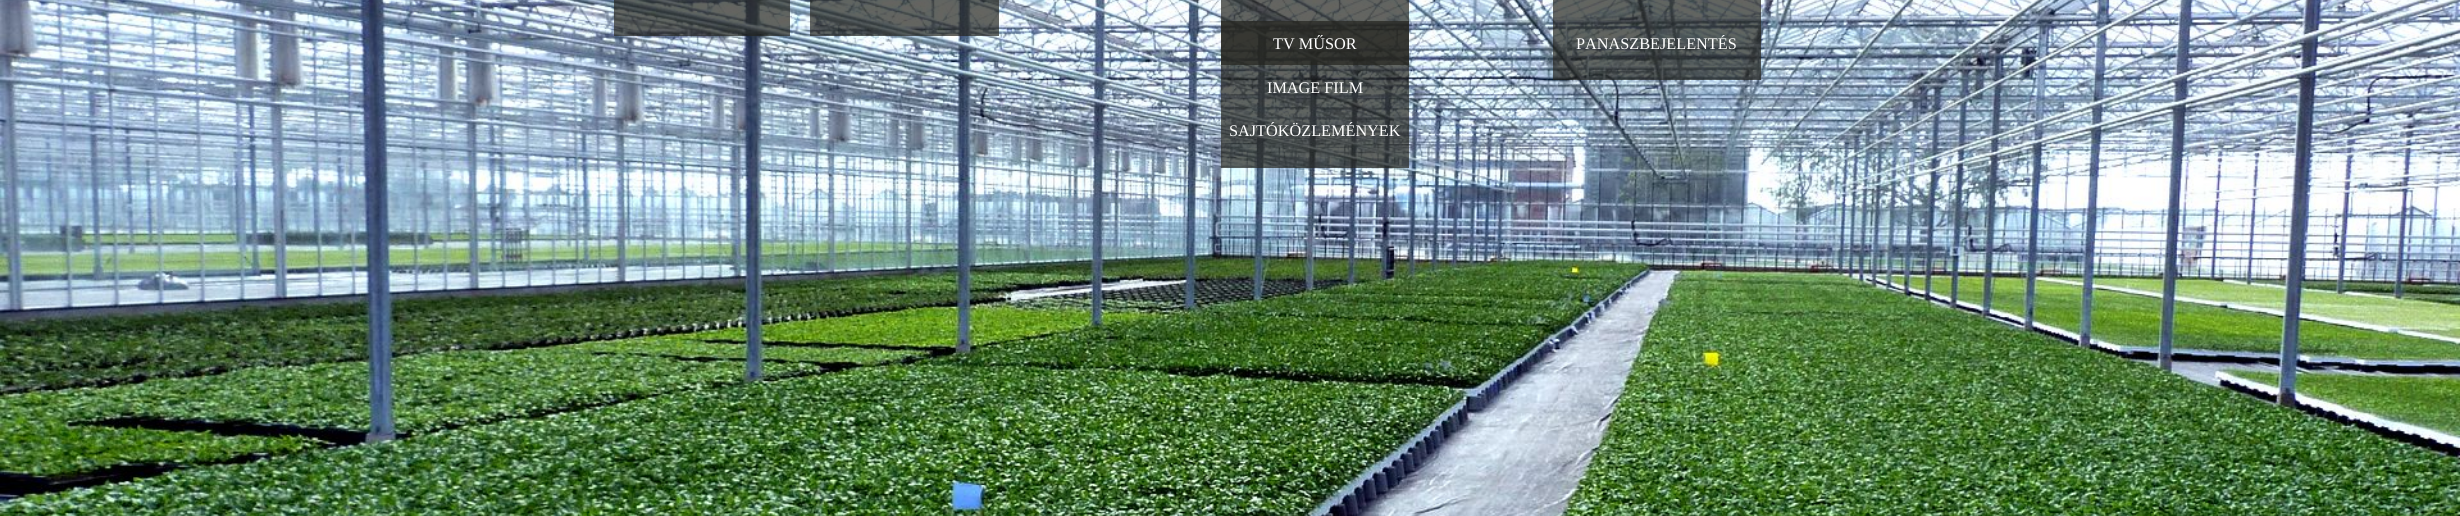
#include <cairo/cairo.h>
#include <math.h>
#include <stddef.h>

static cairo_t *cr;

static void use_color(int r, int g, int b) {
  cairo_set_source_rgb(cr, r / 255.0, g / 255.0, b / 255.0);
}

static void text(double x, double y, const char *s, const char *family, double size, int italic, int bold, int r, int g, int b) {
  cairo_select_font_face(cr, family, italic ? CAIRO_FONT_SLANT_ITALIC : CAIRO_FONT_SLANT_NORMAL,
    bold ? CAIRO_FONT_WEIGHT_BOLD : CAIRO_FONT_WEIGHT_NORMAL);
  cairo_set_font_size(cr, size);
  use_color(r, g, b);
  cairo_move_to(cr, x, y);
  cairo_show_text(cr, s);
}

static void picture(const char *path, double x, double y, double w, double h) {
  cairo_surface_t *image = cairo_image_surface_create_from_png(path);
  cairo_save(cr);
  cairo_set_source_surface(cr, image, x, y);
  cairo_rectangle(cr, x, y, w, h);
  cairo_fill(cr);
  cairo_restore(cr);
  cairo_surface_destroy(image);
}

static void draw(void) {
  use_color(255, 255, 255);
  cairo_paint(cr);
  picture("img_01.png", 0, 0, 2460, 516);
  cairo_set_source_rgba(cr, 0.141, 0.145, 0.118, 0.7);
  cairo_rectangle(cr, 614, 0, 176, 36);
  cairo_fill(cr);
  cairo_rectangle(cr, 810, 0, 189, 36);
  cairo_fill(cr);
  cairo_rectangle(cr, 1221, 0, 188, 168);
  cairo_fill(cr);
  cairo_rectangle(cr, 1221, 21, 188, 44);
  cairo_fill(cr);
  cairo_rectangle(cr, 1553, 0, 208, 80);
  cairo_fill(cr);
  text(1273, 49, "TV MŰSOR", "Liberation Serif", 16.25, 0, 0, 255, 255, 255);
  text(1267, 93, "IMAGE FILM", "Liberation Serif", 16.25, 0, 0, 255, 255, 255);
  text(1229, 136, "SAJTÓKÖZLEMÉNYEK", "Liberation Serif", 16.25, 0, 0, 255, 255, 255);
  text(1576, 49, "PANASZBEJELENTÉS", "Liberation Serif", 16.25, 0, 0, 255, 255, 255);
}

int main(void) {
  cairo_surface_t *surface = cairo_image_surface_create(CAIRO_FORMAT_RGB24, 2460, 516);
  cr = cairo_create(surface);
  cairo_font_options_t *options = cairo_font_options_create();
  cairo_font_options_set_hint_metrics(options, CAIRO_HINT_METRICS_OFF);
  cairo_font_options_set_hint_style(options, CAIRO_HINT_STYLE_NONE);
  cairo_set_font_options(cr, options);
  cairo_set_miter_limit(cr, 4);
  draw();
  cairo_surface_write_to_png(surface, "out.png");
  cairo_font_options_destroy(options);
  cairo_destroy(cr);
  cairo_surface_destroy(surface);
  return 0;
}
